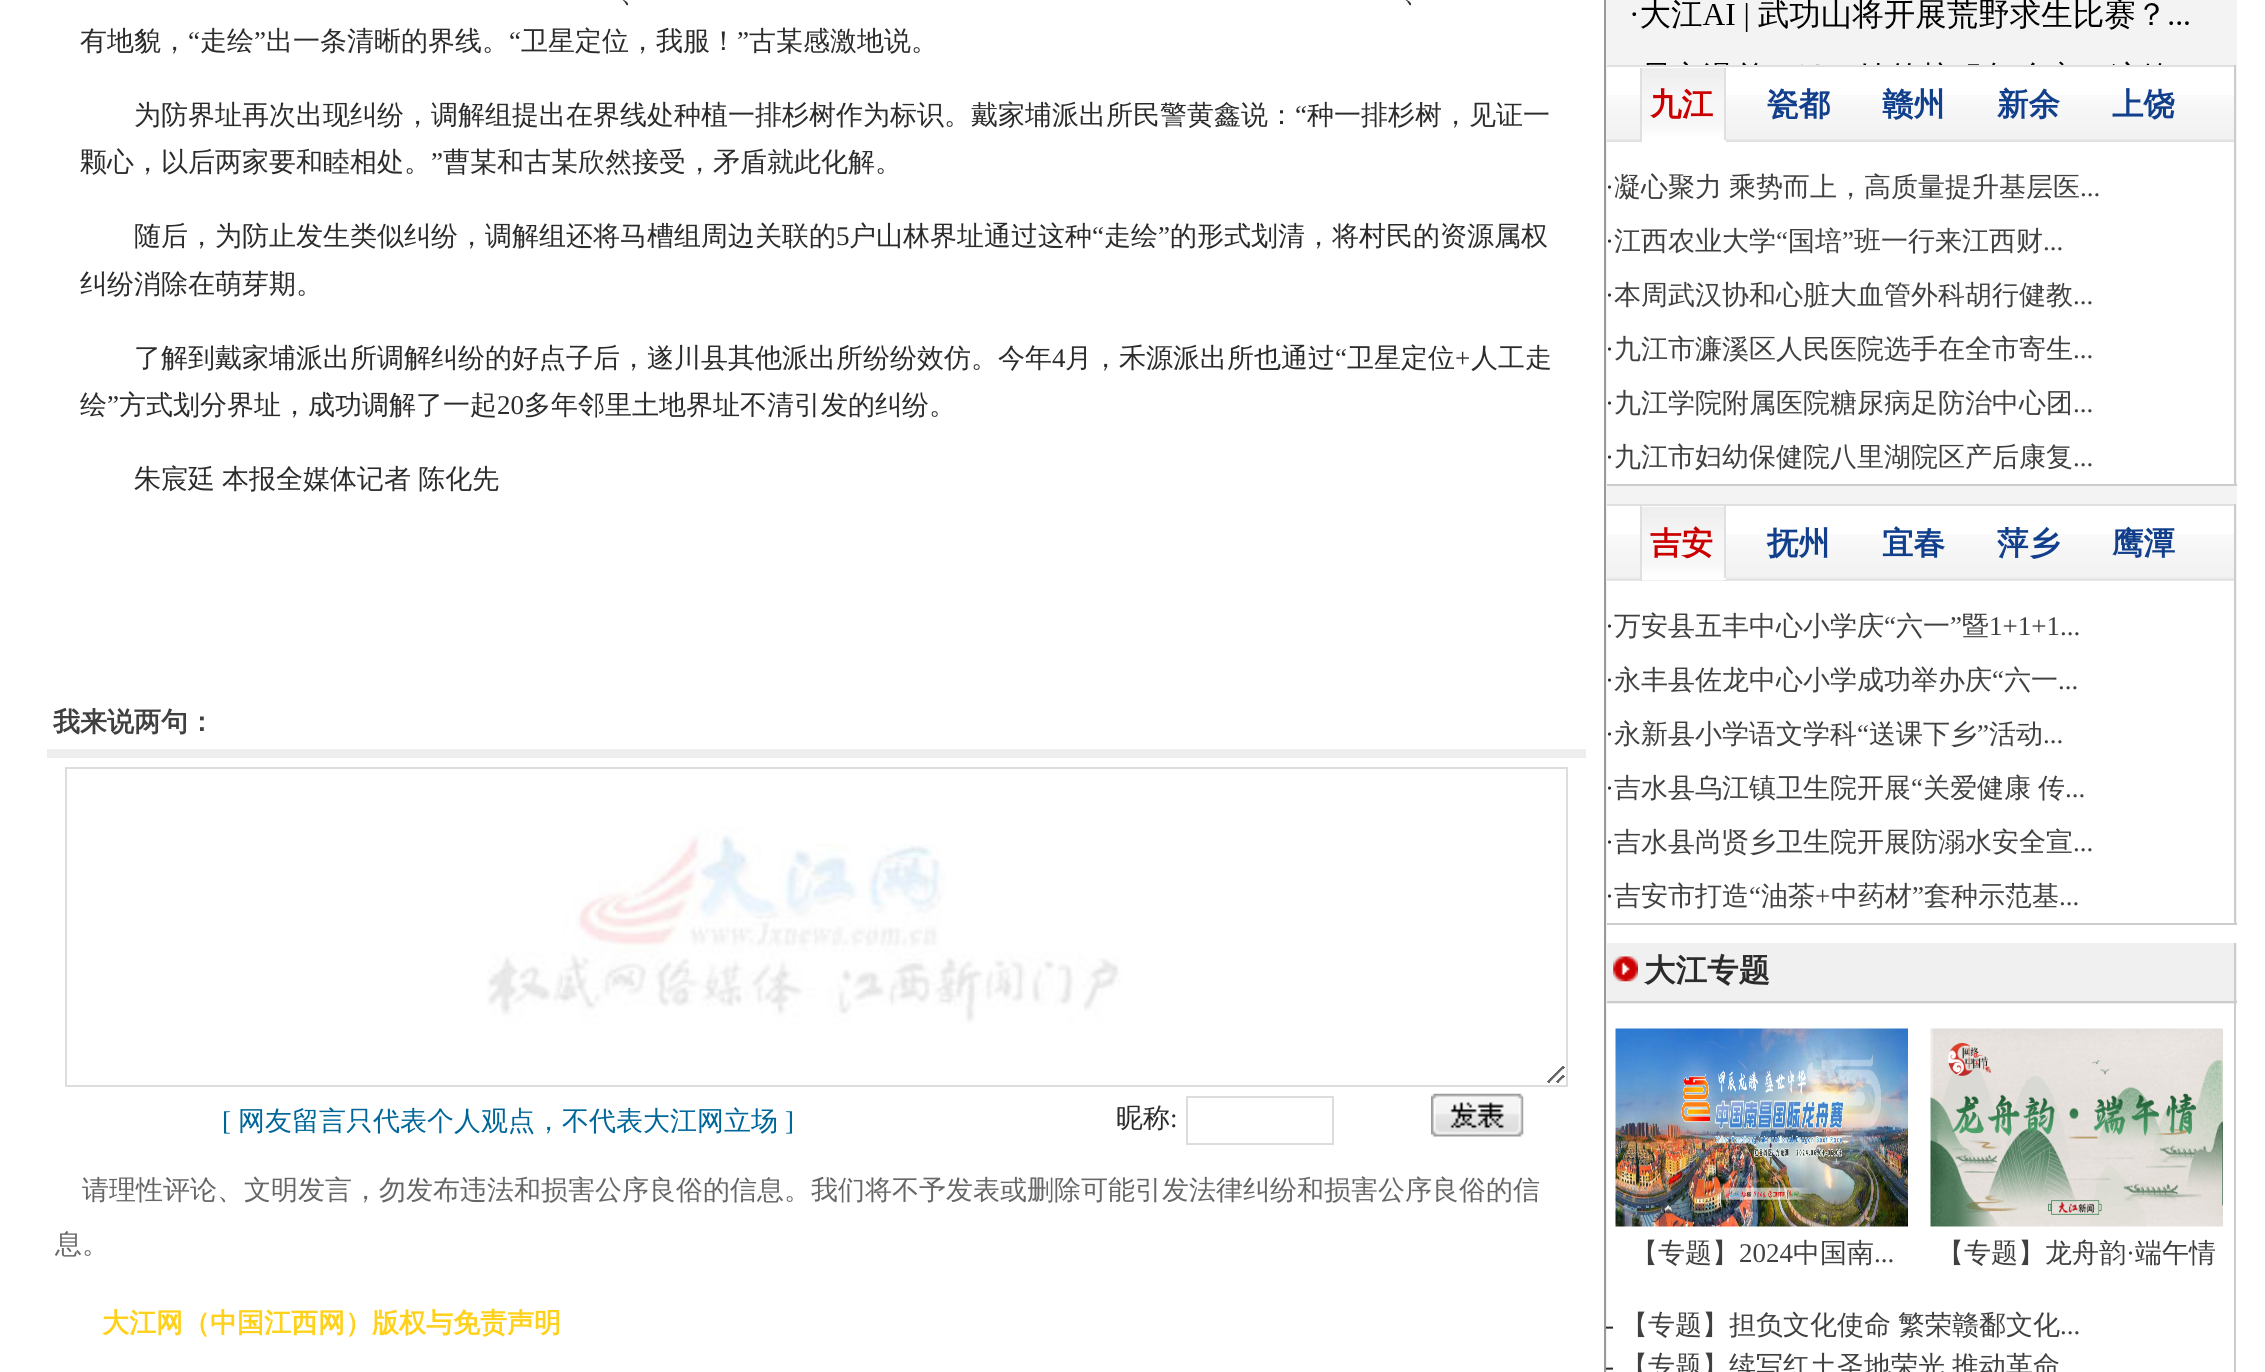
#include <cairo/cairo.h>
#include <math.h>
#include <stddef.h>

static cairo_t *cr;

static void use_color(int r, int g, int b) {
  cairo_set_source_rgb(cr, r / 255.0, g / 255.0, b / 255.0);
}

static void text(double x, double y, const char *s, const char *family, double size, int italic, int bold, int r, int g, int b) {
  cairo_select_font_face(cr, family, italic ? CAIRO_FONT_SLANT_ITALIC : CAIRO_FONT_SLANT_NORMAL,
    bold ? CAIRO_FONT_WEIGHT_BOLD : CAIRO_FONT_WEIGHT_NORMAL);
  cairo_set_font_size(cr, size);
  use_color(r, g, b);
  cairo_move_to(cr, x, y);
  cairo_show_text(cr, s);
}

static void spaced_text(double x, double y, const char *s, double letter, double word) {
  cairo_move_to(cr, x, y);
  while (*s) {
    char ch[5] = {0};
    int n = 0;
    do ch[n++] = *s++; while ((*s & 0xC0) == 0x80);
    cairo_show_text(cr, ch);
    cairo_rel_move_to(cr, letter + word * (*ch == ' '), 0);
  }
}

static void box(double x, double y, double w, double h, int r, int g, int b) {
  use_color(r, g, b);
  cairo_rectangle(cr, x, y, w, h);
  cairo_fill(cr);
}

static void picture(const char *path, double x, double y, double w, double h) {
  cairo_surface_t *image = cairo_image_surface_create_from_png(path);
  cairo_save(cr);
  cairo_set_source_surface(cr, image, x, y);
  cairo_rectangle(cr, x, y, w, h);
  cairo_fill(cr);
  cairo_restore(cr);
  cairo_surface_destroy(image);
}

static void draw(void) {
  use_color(255, 255, 255);
  cairo_paint(cr);
  box(47, 749, 1539, 9, 238, 238, 238);
  picture("img_01.png", 487, 827, 1078, 256);
  cairo_rectangle(cr, 66, 768, 1501, 318);
  use_color(221, 221, 221);
  cairo_stroke(cr);
  cairo_rectangle(cr, 1187, 1097, 146, 47);
  cairo_stroke(cr);
  picture("img_02.png", 1431, 1093, 93, 44);
  box(1606, 0, 631, 1372, 243, 243, 243);
  box(1604, 0, 2, 1372, 153, 153, 153);
  picture("img_03.png", 1632, 0, 557, 65);
  box(2234, 65, 2, 421, 204, 204, 204);
  box(1607, 484, 630, 2, 204, 204, 204);
  box(1607, 67, 627, 417, 255, 255, 255);
  box(1607, 65, 627, 2, 224, 224, 224);
  picture("img_04.png", 1606, 95, 628, 47);
  picture("img_05.png", 1642, 68, 82, 72);
  box(1724, 68, 2, 74, 224, 224, 224);
  box(1640, 140, 86, 2, 255, 255, 255);
  box(1640, 68, 2, 74, 224, 224, 224);
  box(2234, 504, 2, 421, 204, 204, 204);
  box(1607, 923, 630, 2, 204, 204, 204);
  box(1607, 506, 627, 417, 255, 255, 255);
  box(1607, 504, 627, 2, 224, 224, 224);
  picture("img_06.png", 1606, 534, 628, 47);
  box(1642, 534, 82, 47, 255, 255, 255);
  picture("img_07.png", 1642, 506, 82, 75);
  box(1724, 506, 2, 75, 224, 224, 224);
  box(1640, 578, 86, 2, 255, 255, 255);
  box(1640, 506, 2, 75, 224, 224, 224);
  box(1607, 925, 630, 447, 255, 255, 255);
  box(1607, 943, 630, 61, 240, 240, 240);
  box(2234, 943, 2, 429, 204, 204, 204);
  box(1607, 1001, 630, 2, 204, 204, 204);
  picture("img_08.png", 1613, 956, 25, 26);
  picture("img_09.png", 1615, 1028, 293, 199);
  picture("img_10.png", 1930, 1028, 293, 199);
  text(620, 2, "、", "WenQuanYi Zen Hei Medium", 27, 0, 0, 43, 43, 43);
  text(1403, 2, "、", "WenQuanYi Zen Hei Medium", 27, 0, 0, 43, 43, 43);
  text(80, 50, "有地貌，", "WenQuanYi Zen Hei Medium", 27, 0, 0, 43, 43, 43);
  text(188, 50, "“", "Liberation Serif", 27, 0, 0, 43, 43, 43);
  text(200, 50, "走绘", "WenQuanYi Zen Hei Medium", 27, 0, 0, 43, 43, 43);
  text(254, 50, "”", "Liberation Serif", 27, 0, 0, 43, 43, 43);
  text(266, 50, "出一条清晰的界线。", "WenQuanYi Zen Hei Medium", 27, 0, 0, 43, 43, 43);
  text(509, 50, "“", "Liberation Serif", 27, 0, 0, 43, 43, 43);
  text(521, 50, "卫星定位，我服！", "WenQuanYi Zen Hei Medium", 27, 0, 0, 43, 43, 43);
  text(737, 50, "”", "Liberation Serif", 27, 0, 0, 43, 43, 43);
  text(749, 50, "古某感激地说。", "WenQuanYi Zen Hei Medium", 27, 0, 0, 43, 43, 43);
  text(134, 124, "为防界址再次出现纠纷，调解组提出在界线处种植一排杉树作为标识。戴家埔派出所民警黄鑫说：", "WenQuanYi Zen Hei Medium", 27, 0, 0, 43, 43, 43);
  text(1295, 124, "“", "Liberation Serif", 27, 0, 0, 43, 43, 43);
  text(1307, 124, "种一排杉树，见证一", "WenQuanYi Zen Hei Medium", 27, 0, 0, 43, 43, 43);
  text(80, 171, "颗心，以后两家要和睦相处。", "WenQuanYi Zen Hei Medium", 27, 0, 0, 43, 43, 43);
  text(431, 171, "”", "Liberation Serif", 27, 0, 0, 43, 43, 43);
  text(443, 171, "曹某和古某欣然接受，矛盾就此化解。", "WenQuanYi Zen Hei Medium", 27, 0, 0, 43, 43, 43);
  text(134, 245, "随后，为防止发生类似纠纷，调解组还将马槽组周边关联的", "WenQuanYi Zen Hei Medium", 27, 0, 0, 43, 43, 43);
  text(836, 245, "5", "Liberation Serif", 27, 0, 0, 43, 43, 43);
  text(849, 245, "户山林界址通过这种", "WenQuanYi Zen Hei Medium", 27, 0, 0, 43, 43, 43);
  text(1092, 245, "“", "Liberation Serif", 27, 0, 0, 43, 43, 43);
  text(1104, 245, "走绘", "WenQuanYi Zen Hei Medium", 27, 0, 0, 43, 43, 43);
  text(1158, 245, "”", "Liberation Serif", 27, 0, 0, 43, 43, 43);
  text(1170, 245, "的形式划清，将村民的资源属权", "WenQuanYi Zen Hei Medium", 27, 0, 0, 43, 43, 43);
  text(80, 293, "纠纷消除在萌芽期。", "WenQuanYi Zen Hei Medium", 27, 0, 0, 43, 43, 43);
  text(134, 367, "了解到戴家埔派出所调解纠纷的好点子后，遂川县其他派出所纷纷效仿。今年", "WenQuanYi Zen Hei Medium", 27, 0, 0, 43, 43, 43);
  text(1052, 367, "4", "Liberation Serif", 27, 0, 0, 43, 43, 43);
  text(1065, 367, "月，禾源派出所也通过", "WenQuanYi Zen Hei Medium", 27, 0, 0, 43, 43, 43);
  text(1335, 367, "“", "Liberation Serif", 27, 0, 0, 43, 43, 43);
  text(1347, 367, "卫星定位", "WenQuanYi Zen Hei Medium", 27, 0, 0, 43, 43, 43);
  text(1455, 367, "+", "Liberation Serif", 27, 0, 0, 43, 43, 43);
  text(1471, 367, "人工走", "WenQuanYi Zen Hei Medium", 27, 0, 0, 43, 43, 43);
  text(80, 414, "绘", "WenQuanYi Zen Hei Medium", 27, 0, 0, 43, 43, 43);
  text(107, 414, "”", "Liberation Serif", 27, 0, 0, 43, 43, 43);
  text(119, 414, "方式划分界址，成功调解了一起", "WenQuanYi Zen Hei Medium", 27, 0, 0, 43, 43, 43);
  text(497, 414, "20", "Liberation Serif", 27, 0, 0, 43, 43, 43);
  text(524, 414, "多年邻里土地界址不清引发的纠纷。", "WenQuanYi Zen Hei Medium", 27, 0, 0, 43, 43, 43);
  spaced_text(134, 488, "朱宸廷 本报全媒体记者 陈化先", 0, -1);
  text(53, 731, "我来说两句：", "WenQuanYi Zen Hei", 27, 0, 1, 64, 64, 64);
  text(222, 1130, "[", "Liberation Serif", 27, 0, 0, 0, 102, 153);
  text(238, 1130, "网友留言只代表个人观点，不代表大江网立场", "WenQuanYi Zen Hei Medium", 27, 0, 0, 0, 102, 153);
  text(785, 1130, "]", "Liberation Serif", 27, 0, 0, 0, 102, 153);
  text(1116, 1127, "昵称", "WenQuanYi Zen Hei Medium", 27, 0, 0, 43, 43, 43);
  text(1170, 1127, ":", "Liberation Serif", 27, 0, 0, 43, 43, 43);
  text(82, 1199, "请理性评论、文明发言，勿发布违法和损害公序良俗的信息。我们将不予发表或删除可能引发法律纠纷和损害公序良俗的信", "WenQuanYi Zen Hei Medium", 27, 0, 0, 102, 102, 102);
  text(55, 1253, "息。", "WenQuanYi Zen Hei Medium", 27, 0, 0, 102, 102, 102);
  text(102, 1332, "大江网（中国江西网）版权与免责声明", "WenQuanYi Zen Hei", 27, 0, 1, 255, 209, 27);
  text(1650, 115, "九江", "WenQuanYi Zen Hei", 31.5, 0, 1, 202, 0, 0);
  text(1767, 115, "瓷都", "WenQuanYi Zen Hei", 31.5, 0, 1, 17, 63, 140);
  text(1882, 115, "赣州", "WenQuanYi Zen Hei", 31.5, 0, 1, 17, 63, 140);
  text(1997, 115, "新余", "WenQuanYi Zen Hei", 31.5, 0, 1, 17, 63, 140);
  text(2112, 115, "上饶", "WenQuanYi Zen Hei", 31.5, 0, 1, 17, 63, 140);
  text(1605, 196, "·", "Liberation Serif", 27, 0, 0, 43, 43, 43);
  cairo_select_font_face(cr, "WenQuanYi Zen Hei Medium", CAIRO_FONT_SLANT_NORMAL, CAIRO_FONT_WEIGHT_NORMAL);
  use_color(64, 64, 64);
  spaced_text(1614, 196, "凝心聚力 乘势而上，高质量提升基层医", 0, -1);
  text(2080, 196, "...", "Liberation Serif", 27, 0, 0, 64, 64, 64);
  text(1614, 250, "江西农业大学", "WenQuanYi Zen Hei Medium", 27, 0, 0, 64, 64, 64);
  text(1776, 250, "“", "Liberation Serif", 27, 0, 0, 64, 64, 64);
  text(1788, 250, "国培", "WenQuanYi Zen Hei Medium", 27, 0, 0, 64, 64, 64);
  text(1842, 250, "”", "Liberation Serif", 27, 0, 0, 64, 64, 64);
  text(1854, 250, "班一行来江西财", "WenQuanYi Zen Hei Medium", 27, 0, 0, 64, 64, 64);
  text(1605, 250, "·", "Liberation Serif", 27, 0, 0, 43, 43, 43);
  text(2043, 250, "...", "Liberation Serif", 27, 0, 0, 64, 64, 64);
  text(1605, 304, "·", "Liberation Serif", 27, 0, 0, 43, 43, 43);
  text(1614, 304, "本周武汉协和心脏大血管外科胡行健教", "WenQuanYi Zen Hei Medium", 27, 0, 0, 64, 64, 64);
  text(2073, 304, "...", "Liberation Serif", 27, 0, 0, 64, 64, 64);
  text(1605, 358, "·", "Liberation Serif", 27, 0, 0, 43, 43, 43);
  text(1614, 358, "九江市濂溪区人民医院选手在全市寄生", "WenQuanYi Zen Hei Medium", 27, 0, 0, 64, 64, 64);
  text(2073, 358, "...", "Liberation Serif", 27, 0, 0, 64, 64, 64);
  text(1605, 412, "·", "Liberation Serif", 27, 0, 0, 43, 43, 43);
  text(1614, 412, "九江学院附属医院糖尿病足防治中心团", "WenQuanYi Zen Hei Medium", 27, 0, 0, 64, 64, 64);
  text(2073, 412, "...", "Liberation Serif", 27, 0, 0, 64, 64, 64);
  text(1605, 466, "·", "Liberation Serif", 27, 0, 0, 43, 43, 43);
  text(1614, 466, "九江市妇幼保健院八里湖院区产后康复", "WenQuanYi Zen Hei Medium", 27, 0, 0, 64, 64, 64);
  text(2073, 466, "...", "Liberation Serif", 27, 0, 0, 64, 64, 64);
  text(1650, 554, "吉安", "WenQuanYi Zen Hei", 31.5, 0, 1, 202, 0, 0);
  text(1767, 554, "抚州", "WenQuanYi Zen Hei", 31.5, 0, 1, 17, 63, 140);
  text(1882, 554, "宜春", "WenQuanYi Zen Hei", 31.5, 0, 1, 17, 63, 140);
  text(1997, 554, "萍乡", "WenQuanYi Zen Hei", 31.5, 0, 1, 17, 63, 140);
  text(2112, 554, "鹰潭", "WenQuanYi Zen Hei", 31.5, 0, 1, 17, 63, 140);
  text(1605, 635, "·", "Liberation Serif", 27, 0, 0, 43, 43, 43);
  text(1614, 635, "万安县五丰中心小学庆", "WenQuanYi Zen Hei Medium", 27, 0, 0, 64, 64, 64);
  text(1884, 635, "“", "Liberation Serif", 27, 0, 0, 64, 64, 64);
  text(1896, 635, "六一", "WenQuanYi Zen Hei Medium", 27, 0, 0, 64, 64, 64);
  text(1950, 635, "”", "Liberation Serif", 27, 0, 0, 64, 64, 64);
  text(1962, 635, "暨", "WenQuanYi Zen Hei Medium", 27, 0, 0, 64, 64, 64);
  text(1989, 635, "1+1+1...", "Liberation Serif", 27, 0, 0, 64, 64, 64);
  text(1614, 689, "永丰县佐龙中心小学成功举办庆", "WenQuanYi Zen Hei Medium", 27, 0, 0, 64, 64, 64);
  text(1992, 689, "“", "Liberation Serif", 27, 0, 0, 64, 64, 64);
  text(2004, 689, "六一", "WenQuanYi Zen Hei Medium", 27, 0, 0, 64, 64, 64);
  text(1605, 689, "·", "Liberation Serif", 27, 0, 0, 43, 43, 43);
  text(2058, 689, "...", "Liberation Serif", 27, 0, 0, 64, 64, 64);
  text(1614, 743, "永新县小学语文学科", "WenQuanYi Zen Hei Medium", 27, 0, 0, 64, 64, 64);
  text(1857, 743, "“", "Liberation Serif", 27, 0, 0, 64, 64, 64);
  text(1869, 743, "送课下乡", "WenQuanYi Zen Hei Medium", 27, 0, 0, 64, 64, 64);
  text(1977, 743, "”", "Liberation Serif", 27, 0, 0, 64, 64, 64);
  text(1989, 743, "活动", "WenQuanYi Zen Hei Medium", 27, 0, 0, 64, 64, 64);
  text(1605, 743, "·", "Liberation Serif", 27, 0, 0, 43, 43, 43);
  text(2043, 743, "...", "Liberation Serif", 27, 0, 0, 64, 64, 64);
  text(1614, 797, "吉水县乌江镇卫生院开展", "WenQuanYi Zen Hei Medium", 27, 0, 0, 64, 64, 64);
  text(1911, 797, "“", "Liberation Serif", 27, 0, 0, 64, 64, 64);
  cairo_select_font_face(cr, "WenQuanYi Zen Hei Medium", CAIRO_FONT_SLANT_NORMAL, CAIRO_FONT_WEIGHT_NORMAL);
  spaced_text(1923, 797, "关爱健康 传", 0, -1);
  text(1605, 797, "·", "Liberation Serif", 27, 0, 0, 43, 43, 43);
  text(2065, 797, "...", "Liberation Serif", 27, 0, 0, 64, 64, 64);
  text(1605, 851, "·", "Liberation Serif", 27, 0, 0, 43, 43, 43);
  text(1614, 851, "吉水县尚贤乡卫生院开展防溺水安全宣", "WenQuanYi Zen Hei Medium", 27, 0, 0, 64, 64, 64);
  text(2073, 851, "...", "Liberation Serif", 27, 0, 0, 64, 64, 64);
  text(1605, 905, "·", "Liberation Serif", 27, 0, 0, 43, 43, 43);
  text(1614, 905, "吉安市打造", "WenQuanYi Zen Hei Medium", 27, 0, 0, 64, 64, 64);
  text(1749, 905, "“", "Liberation Serif", 27, 0, 0, 64, 64, 64);
  text(1761, 905, "油茶", "WenQuanYi Zen Hei Medium", 27, 0, 0, 64, 64, 64);
  text(1815, 905, "+", "Liberation Serif", 27, 0, 0, 64, 64, 64);
  text(1831, 905, "中药材", "WenQuanYi Zen Hei Medium", 27, 0, 0, 64, 64, 64);
  text(1912, 905, "”", "Liberation Serif", 27, 0, 0, 64, 64, 64);
  text(1924, 905, "套种示范基", "WenQuanYi Zen Hei Medium", 27, 0, 0, 64, 64, 64);
  text(2059, 905, "...", "Liberation Serif", 27, 0, 0, 64, 64, 64);
  text(1644, 981, "大江专题", "WenQuanYi Zen Hei", 31.5, 0, 1, 43, 43, 43);
  text(1631, 1262, "【专题】", "WenQuanYi Zen Hei Medium", 27, 0, 0, 64, 64, 64);
  text(1739, 1262, "2024", "Liberation Serif", 27, 0, 0, 64, 64, 64);
  text(1793, 1262, "中国南", "WenQuanYi Zen Hei Medium", 27, 0, 0, 64, 64, 64);
  text(1874, 1262, "...", "Liberation Serif", 27, 0, 0, 64, 64, 64);
  text(1937, 1262, "【专题】龙舟韵", "WenQuanYi Zen Hei Medium", 27, 0, 0, 64, 64, 64);
  text(2126, 1262, "·", "Liberation Serif", 27, 0, 0, 64, 64, 64);
  text(2135, 1262, "端午情", "WenQuanYi Zen Hei Medium", 27, 0, 0, 64, 64, 64);
  text(1605, 1334, "-", "Liberation Serif", 27, 0, 0, 43, 43, 43);
  cairo_select_font_face(cr, "WenQuanYi Zen Hei Medium", CAIRO_FONT_SLANT_NORMAL, CAIRO_FONT_WEIGHT_NORMAL);
  use_color(64, 64, 64);
  spaced_text(1621, 1334, "【专题】担负文化使命 繁荣赣鄱文化", 0, -1);
  text(2060, 1334, "...", "Liberation Serif", 27, 0, 0, 64, 64, 64);
  text(1605, 1375, "-", "Liberation Serif", 27, 0, 0, 43, 43, 43);
  cairo_select_font_face(cr, "WenQuanYi Zen Hei Medium", CAIRO_FONT_SLANT_NORMAL, CAIRO_FONT_WEIGHT_NORMAL);
  use_color(64, 64, 64);
  spaced_text(1621, 1375, "【专题】续写红土圣地荣光 推动革命", 0, -1);
}

int main(void) {
  cairo_surface_t *surface = cairo_image_surface_create(CAIRO_FORMAT_RGB24, 2265, 1372);
  cr = cairo_create(surface);
  cairo_font_options_t *options = cairo_font_options_create();
  cairo_font_options_set_hint_metrics(options, CAIRO_HINT_METRICS_OFF);
  cairo_font_options_set_hint_style(options, CAIRO_HINT_STYLE_NONE);
  cairo_set_font_options(cr, options);
  cairo_set_miter_limit(cr, 4);
  draw();
  cairo_surface_write_to_png(surface, "out.png");
  cairo_font_options_destroy(options);
  cairo_destroy(cr);
  cairo_surface_destroy(surface);
  return 0;
}
